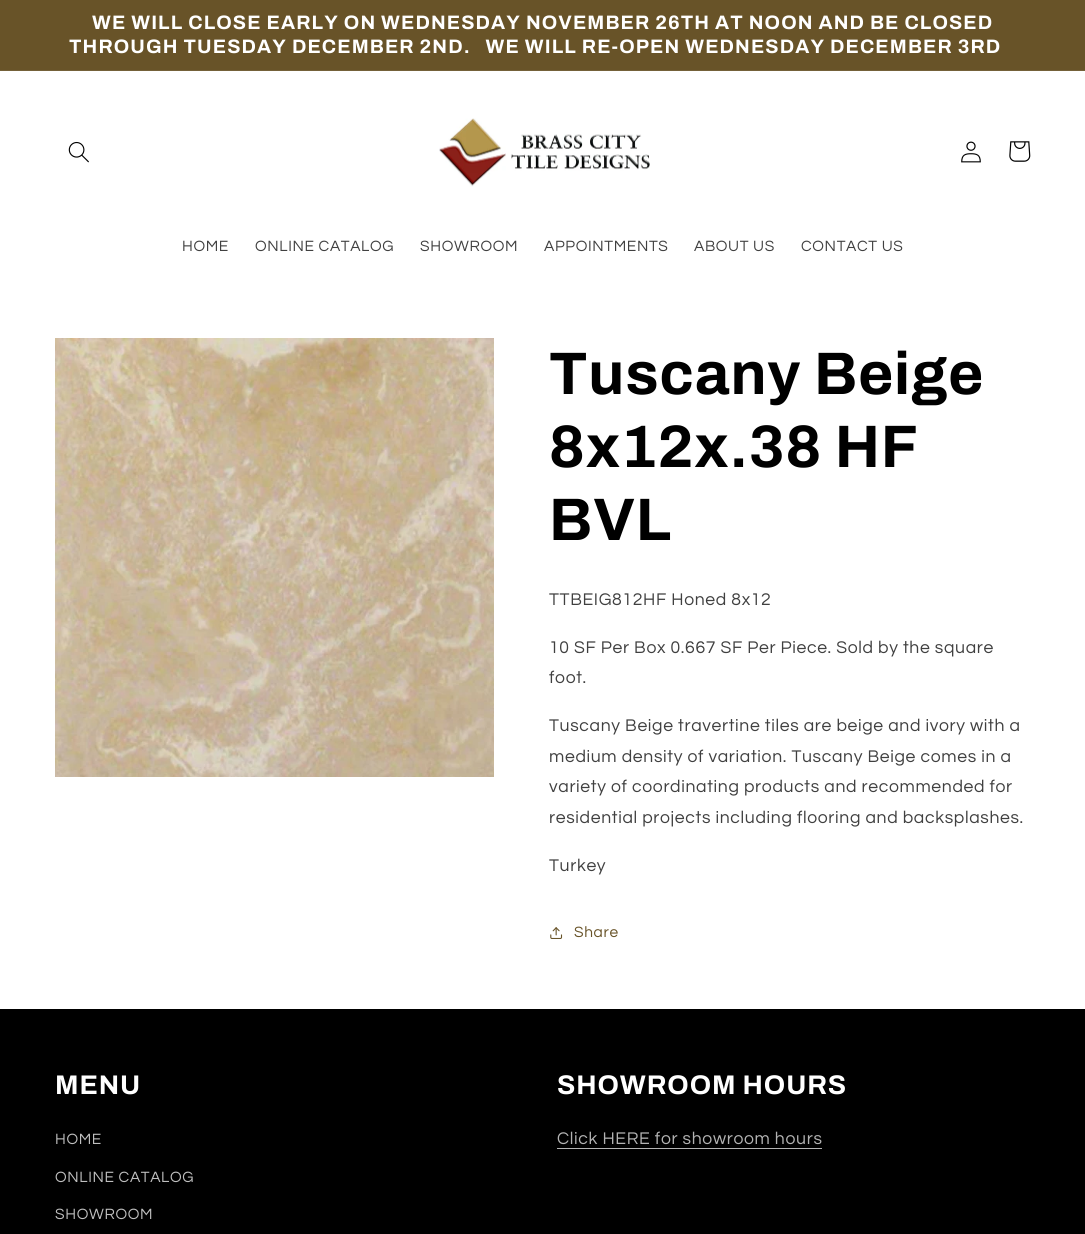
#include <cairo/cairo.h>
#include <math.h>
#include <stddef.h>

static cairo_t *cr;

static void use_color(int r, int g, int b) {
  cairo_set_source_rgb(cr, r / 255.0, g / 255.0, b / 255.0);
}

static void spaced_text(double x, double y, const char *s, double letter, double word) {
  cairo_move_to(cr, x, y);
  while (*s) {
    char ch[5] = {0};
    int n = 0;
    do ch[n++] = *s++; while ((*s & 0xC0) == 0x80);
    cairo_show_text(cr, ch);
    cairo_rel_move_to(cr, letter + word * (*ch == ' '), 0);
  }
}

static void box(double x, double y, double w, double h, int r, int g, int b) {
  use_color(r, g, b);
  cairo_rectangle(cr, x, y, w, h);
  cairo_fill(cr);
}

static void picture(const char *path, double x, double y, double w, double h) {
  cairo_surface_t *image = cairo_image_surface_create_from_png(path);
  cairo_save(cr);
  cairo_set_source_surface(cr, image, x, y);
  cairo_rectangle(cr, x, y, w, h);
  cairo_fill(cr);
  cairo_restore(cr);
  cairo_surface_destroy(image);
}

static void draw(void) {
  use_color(255, 255, 255);
  cairo_paint(cr);
  box(0, 0, 1085, 70, 104, 83, 40);
  box(0, 70, 1085, 1, 116, 97, 57);
  picture("img_01.png", 68, 141, 21, 22);
  picture("img_02.png", 439, 118, 211, 69);
  picture("img_03.png", 961, 141, 20, 22);
  picture("img_04.png", 1009, 141, 22, 21);
  picture("img_05.png", 55, 338, 439, 439);
  picture("img_06.png", 550, 927, 13, 12);
  box(0, 1009, 1085, 225, 0, 0, 0);
  box(557, 1148, 265, 1, 179, 179, 179);
  cairo_select_font_face(cr, "Archivo", CAIRO_FONT_SLANT_NORMAL, CAIRO_FONT_WEIGHT_BOLD);
  cairo_set_font_size(cr, 19.5);
  use_color(255, 255, 255);
  spaced_text(92, 29, "WE WILL CLOSE EARLY ON WEDNESDAY NOVEMBER 26TH AT NOON AND BE CLOSED", 1.1, 0);
  spaced_text(69, 53, "THROUGH TUESDAY DECEMBER 2ND.   WE WILL RE-OPEN WEDNESDAY DECEMBER 3RD", 1.1, 0);
  cairo_select_font_face(cr, "Questrial", CAIRO_FONT_SLANT_NORMAL, CAIRO_FONT_WEIGHT_NORMAL);
  cairo_set_font_size(cr, 15.5);
  use_color(64, 64, 64);
  spaced_text(182, 251, "HOME", 0.65, 0);
  spaced_text(255, 251, "ONLINE CATALOG", 0.65, 0);
  spaced_text(420, 251, "SHOWROOM", 0.65, 0);
  spaced_text(544, 251, "APPOINTMENTS", 0.65, 0);
  spaced_text(694, 251, "ABOUT US", 0.65, 0);
  spaced_text(801, 251, "CONTACT US", 0.65, 0);
  cairo_select_font_face(cr, "Archivo", CAIRO_FONT_SLANT_NORMAL, CAIRO_FONT_WEIGHT_BOLD);
  cairo_set_font_size(cr, 60);
  use_color(0, 0, 0);
  spaced_text(549, 394, "Tuscany Beige", 0.9, 0);
  spaced_text(549, 467, "8x12x.38 HF", 0.9, 0);
  spaced_text(549, 540, "BVL", 0.9, 0);
  cairo_select_font_face(cr, "Questrial", CAIRO_FONT_SLANT_NORMAL, CAIRO_FONT_WEIGHT_NORMAL);
  cairo_set_font_size(cr, 17.6);
  use_color(64, 64, 64);
  spaced_text(549, 605, "TTBEIG812HF Honed 8x12", 0.65, 0);
  spaced_text(549, 653, "10 SF Per Box 0.667 SF Per Piece. Sold by the square", 0.65, 0);
  spaced_text(549, 683, "foot.", 0.65, 0);
  spaced_text(549, 731, "Tuscany Beige travertine tiles are beige and ivory with a", 0.65, 0);
  spaced_text(549, 762, "medium density of variation. Tuscany Beige comes in a", 0.65, 0);
  spaced_text(549, 792, "variety of coordinating products and recommended for", 0.65, 0);
  spaced_text(549, 823, "residential projects including flooring and backsplashes.", 0.65, 0);
  spaced_text(549, 871, "Turkey", 0.65, 0);
  cairo_set_font_size(cr, 15.5);
  use_color(104, 83, 40);
  spaced_text(574, 937, "Share", 0.65, 0);
  cairo_select_font_face(cr, "Archivo", CAIRO_FONT_SLANT_NORMAL, CAIRO_FONT_WEIGHT_BOLD);
  cairo_set_font_size(cr, 27);
  use_color(255, 255, 255);
  spaced_text(55, 1094, "MENU", 0.9, 0);
  cairo_select_font_face(cr, "Questrial", CAIRO_FONT_SLANT_NORMAL, CAIRO_FONT_WEIGHT_NORMAL);
  cairo_set_font_size(cr, 15.5);
  use_color(191, 191, 191);
  spaced_text(55, 1144, "HOME", 0.65, 0);
  spaced_text(55, 1182, "ONLINE CATALOG", 0.65, 0);
  spaced_text(55, 1219, "SHOWROOM", 0.65, 0);
  cairo_select_font_face(cr, "Archivo", CAIRO_FONT_SLANT_NORMAL, CAIRO_FONT_WEIGHT_BOLD);
  cairo_set_font_size(cr, 27);
  use_color(255, 255, 255);
  spaced_text(557, 1094, "SHOWROOM HOURS", 0.9, 0);
  cairo_select_font_face(cr, "Questrial", CAIRO_FONT_SLANT_NORMAL, CAIRO_FONT_WEIGHT_NORMAL);
  cairo_set_font_size(cr, 17.6);
  use_color(179, 179, 179);
  spaced_text(557, 1144, "Click HERE for showroom hours", 0.65, 0);
}

int main(void) {
  cairo_surface_t *surface = cairo_image_surface_create(CAIRO_FORMAT_RGB24, 1085, 1234);
  cr = cairo_create(surface);
  cairo_font_options_t *options = cairo_font_options_create();
  cairo_font_options_set_hint_metrics(options, CAIRO_HINT_METRICS_OFF);
  cairo_font_options_set_hint_style(options, CAIRO_HINT_STYLE_NONE);
  cairo_set_font_options(cr, options);
  cairo_set_miter_limit(cr, 4);
  draw();
  cairo_surface_write_to_png(surface, "out.png");
  cairo_font_options_destroy(options);
  cairo_destroy(cr);
  cairo_surface_destroy(surface);
  return 0;
}
